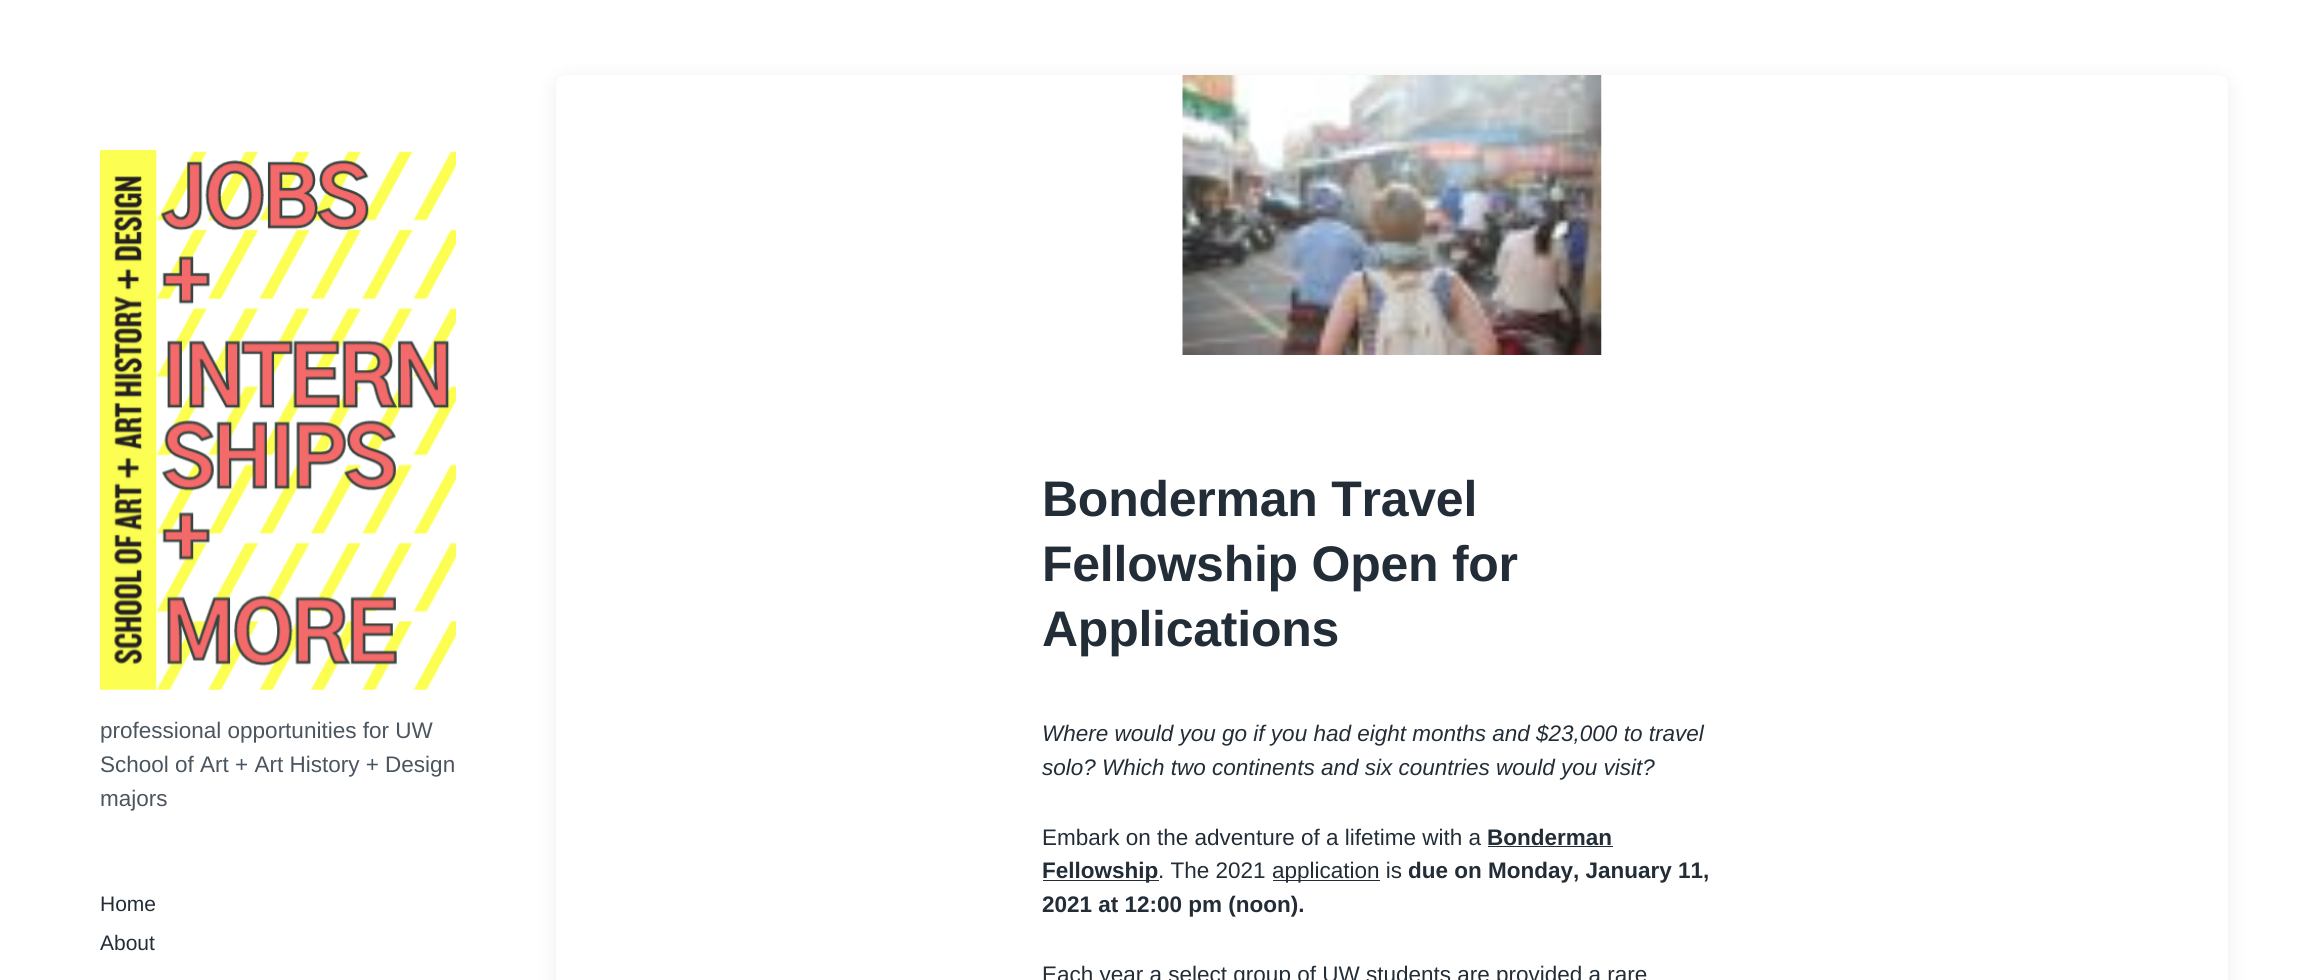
#include <cairo/cairo.h>
#include <math.h>
#include <stddef.h>

static cairo_t *cr;

static void use_color(int r, int g, int b) {
  cairo_set_source_rgb(cr, r / 255.0, g / 255.0, b / 255.0);
}

static void text(double x, double y, const char *s, const char *family, double size, int italic, int bold, int r, int g, int b) {
  cairo_select_font_face(cr, family, italic ? CAIRO_FONT_SLANT_ITALIC : CAIRO_FONT_SLANT_NORMAL,
    bold ? CAIRO_FONT_WEIGHT_BOLD : CAIRO_FONT_WEIGHT_NORMAL);
  cairo_set_font_size(cr, size);
  use_color(r, g, b);
  cairo_move_to(cr, x, y);
  cairo_show_text(cr, s);
}

static void spaced_text(double x, double y, const char *s, double letter, double word) {
  cairo_move_to(cr, x, y);
  while (*s) {
    char ch[5] = {0};
    int n = 0;
    do ch[n++] = *s++; while ((*s & 0xC0) == 0x80);
    cairo_show_text(cr, ch);
    cairo_rel_move_to(cr, letter + word * (*ch == ' '), 0);
  }
}

static void box(double x, double y, double w, double h, int r, int g, int b) {
  use_color(r, g, b);
  cairo_rectangle(cr, x, y, w, h);
  cairo_fill(cr);
}

static void round_rect(double x, double y, double w, double h, double r) {
  cairo_new_sub_path(cr);
  cairo_arc(cr, x + w - r, y + h - r, r, 0, M_PI / 2);
  cairo_arc(cr, x + r, y + h - r, r, M_PI / 2, M_PI);
  cairo_arc(cr, x + r, y + r, r, M_PI, 1.5 * M_PI);
  cairo_arc(cr, x + w - r, y + r, r, 1.5 * M_PI, 2 * M_PI);
  cairo_close_path(cr);
}

static void shadow(double x, double y, double w, double h, double r, double blur, double alpha) {
  cairo_push_group_with_content(cr, CAIRO_CONTENT_ALPHA);
  cairo_set_operator(cr, CAIRO_OPERATOR_SOURCE);
  for (int i = 15; i >= -15 && fmin(w, h) + blur * i / 3 > 0; i -= 2) {
    double e = blur * i / 6;
    cairo_set_source_rgba(cr, 0, 0, 0, alpha * erfc((i - 1) / 8.5) / 2);
    round_rect(x - e, y - e, w + 2 * e, h + 2 * e, fmax(0, fmin(r + e + blur * .6, fmin(w, h) / 2 + e)));
    cairo_fill(cr);
  }
  cairo_pattern_t *soft = cairo_pop_group(cr);
  cairo_mask(cr, soft);
  cairo_pattern_destroy(soft);
}

static void picture(const char *path, double x, double y, double w, double h) {
  cairo_surface_t *image = cairo_image_surface_create_from_png(path);
  cairo_save(cr);
  cairo_set_source_surface(cr, image, x, y);
  cairo_rectangle(cr, x, y, w, h);
  cairo_fill(cr);
  cairo_restore(cr);
  cairo_surface_destroy(image);
}

static void draw(void) {
  use_color(255, 255, 255);
  cairo_paint(cr);
  picture("img_01.png", 100, 150, 356, 540);
  use_color(5, 10, 15);
  shadow(556, 79, 1672, 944, 10, 11, 0.07);
  use_color(255, 255, 255);
  round_rect(556, 75, 1672, 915, 10);
  cairo_fill(cr);
  picture("img_02.png", 1182, 75, 420, 280);
  box(1488, 846, 125, 1, 35, 45, 55);
  box(1043, 880, 116, 1, 35, 45, 55);
  box(1273, 880, 107, 1, 35, 45, 55);
  text(100, 738, "professional opportunities for UW", "Liberation Sans", 22.5, 0, 0, 75, 85, 95);
  text(100, 772, "School of Art + Art History + Design", "Liberation Sans", 22.5, 0, 0, 75, 85, 95);
  text(100, 806, "majors", "Liberation Sans", 22.5, 0, 0, 75, 85, 95);
  text(100, 911, "Home", "Liberation Sans", 21, 0, 0, 35, 45, 55);
  text(100, 950, "About", "Liberation Sans", 21, 0, 0, 35, 45, 55);
  cairo_select_font_face(cr, "Liberation Sans", CAIRO_FONT_SLANT_NORMAL, CAIRO_FONT_WEIGHT_BOLD);
  cairo_set_font_size(cr, 50);
  spaced_text(1042, 516, "Bonderman Travel", -0.25, 0);
  spaced_text(1042, 581, "Fellowship Open for", -0.25, 0);
  spaced_text(1042, 646, "Applications", -0.25, 0);
  text(1042, 741, "Where would you go if you had eight months and $23,000 to travel", "Liberation Sans", 22.5, 1, 0, 35, 45, 55);
  text(1042, 775, "solo? Which two continents and six countries would you visit?", "Liberation Sans", 22.5, 1, 0, 35, 45, 55);
  text(1042, 845, "Embark on the adventure of a lifetime with a", "Liberation Sans", 22.5, 0, 0, 35, 45, 55);
  text(1487, 845, "Bonderman", "Liberation Sans", 22.5, 0, 1, 35, 45, 55);
  text(1042, 878, "Fellowship", "Liberation Sans", 22.5, 0, 1, 35, 45, 55);
  text(1158, 878, ". The 2021", "Liberation Sans", 22.5, 0, 0, 35, 45, 55);
  text(1272, 878, "application is", "Liberation Sans", 22.5, 0, 0, 35, 45, 55);
  text(1408, 878, "due on Monday, January 11,", "Liberation Sans", 22.5, 0, 1, 35, 45, 55);
  text(1042, 912, "2021 at 12:00 pm (noon).", "Liberation Sans", 22.5, 0, 1, 35, 45, 55);
  text(1042, 982, "Each year a select group of UW students are provided a rare", "Liberation Sans", 22.5, 0, 0, 35, 45, 55);
}

int main(void) {
  cairo_surface_t *surface = cairo_image_surface_create(CAIRO_FORMAT_RGB24, 2302, 980);
  cr = cairo_create(surface);
  cairo_font_options_t *options = cairo_font_options_create();
  cairo_font_options_set_hint_metrics(options, CAIRO_HINT_METRICS_OFF);
  cairo_font_options_set_hint_style(options, CAIRO_HINT_STYLE_NONE);
  cairo_set_font_options(cr, options);
  cairo_set_miter_limit(cr, 4);
  draw();
  cairo_surface_write_to_png(surface, "out.png");
  cairo_font_options_destroy(options);
  cairo_destroy(cr);
  cairo_surface_destroy(surface);
  return 0;
}
